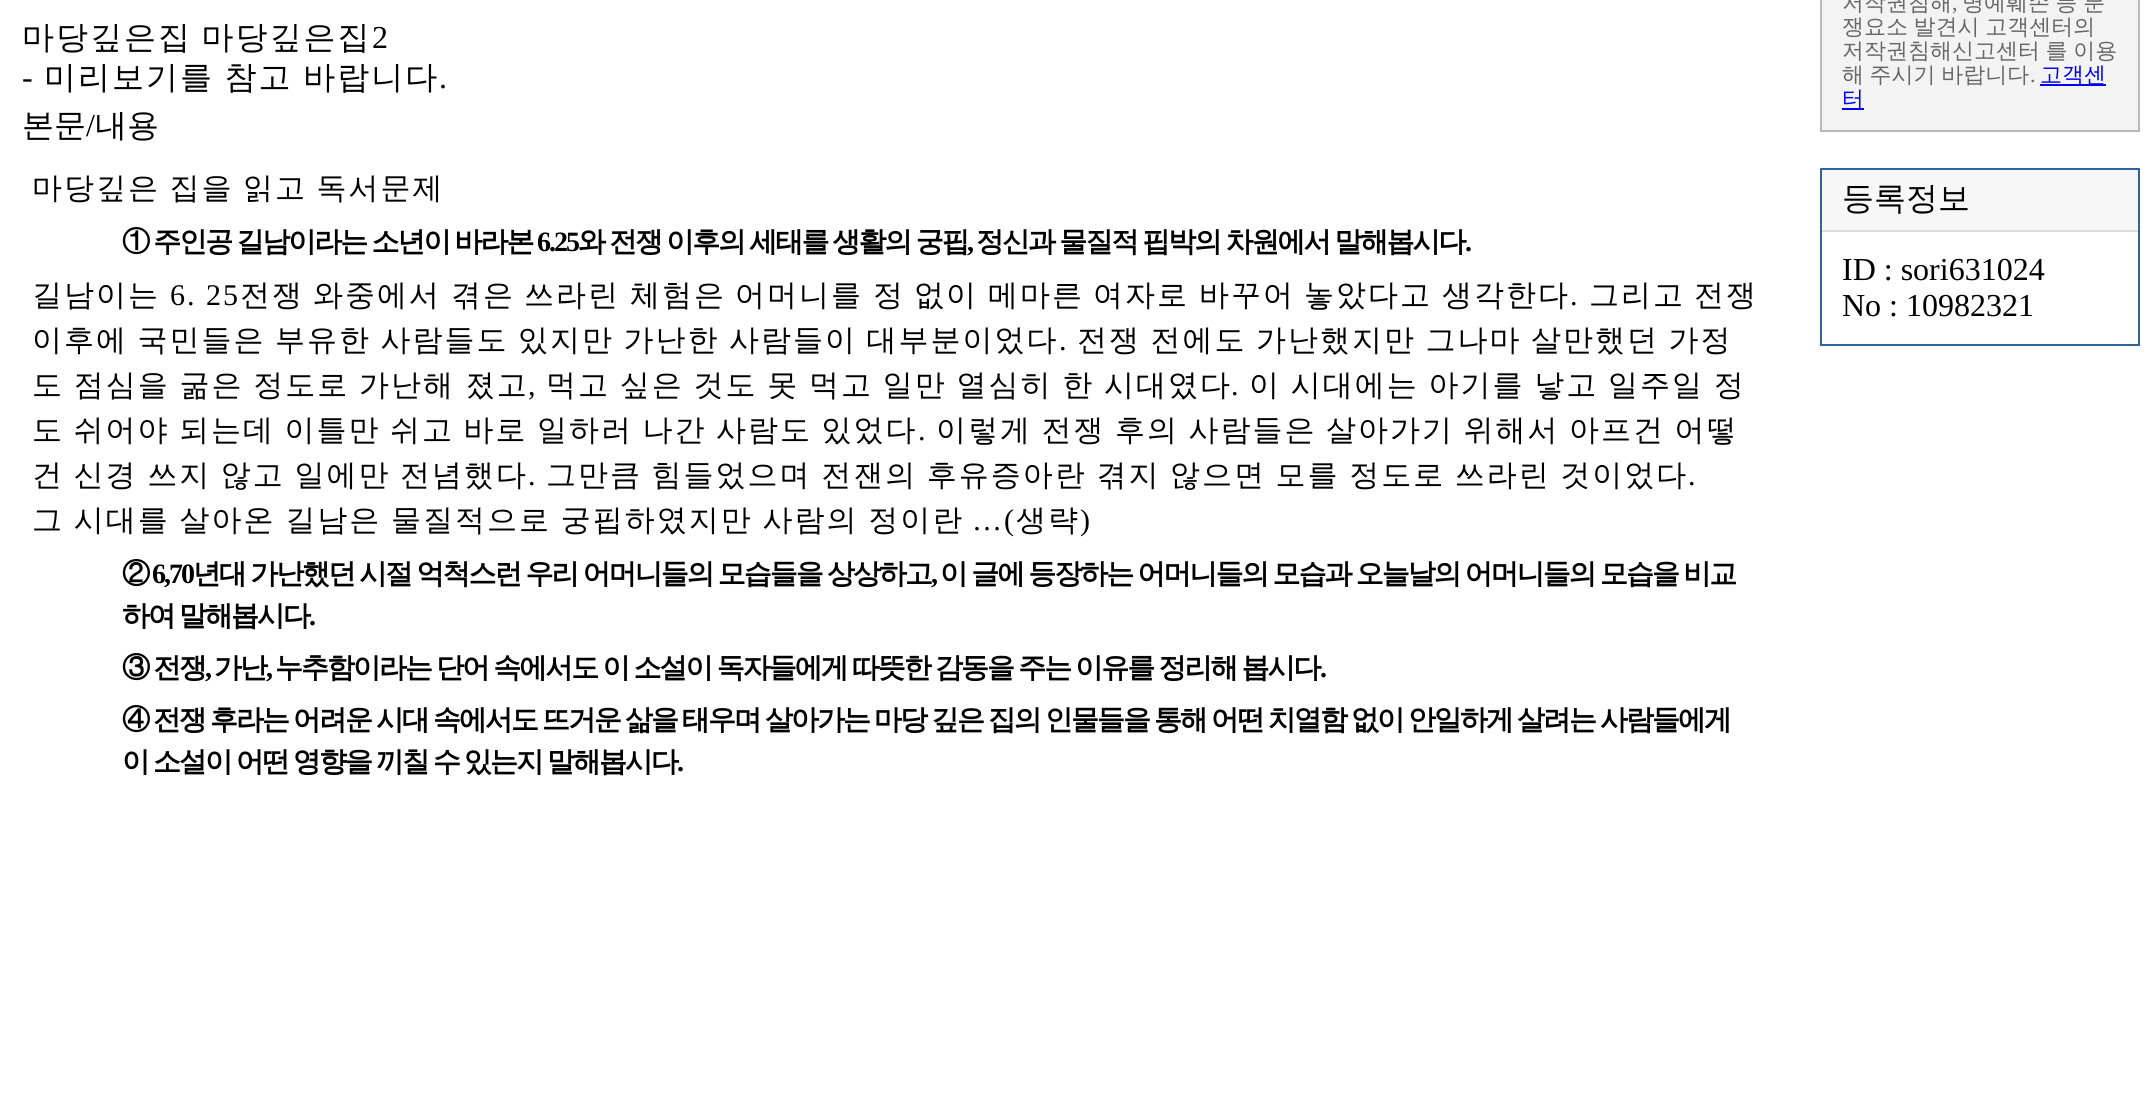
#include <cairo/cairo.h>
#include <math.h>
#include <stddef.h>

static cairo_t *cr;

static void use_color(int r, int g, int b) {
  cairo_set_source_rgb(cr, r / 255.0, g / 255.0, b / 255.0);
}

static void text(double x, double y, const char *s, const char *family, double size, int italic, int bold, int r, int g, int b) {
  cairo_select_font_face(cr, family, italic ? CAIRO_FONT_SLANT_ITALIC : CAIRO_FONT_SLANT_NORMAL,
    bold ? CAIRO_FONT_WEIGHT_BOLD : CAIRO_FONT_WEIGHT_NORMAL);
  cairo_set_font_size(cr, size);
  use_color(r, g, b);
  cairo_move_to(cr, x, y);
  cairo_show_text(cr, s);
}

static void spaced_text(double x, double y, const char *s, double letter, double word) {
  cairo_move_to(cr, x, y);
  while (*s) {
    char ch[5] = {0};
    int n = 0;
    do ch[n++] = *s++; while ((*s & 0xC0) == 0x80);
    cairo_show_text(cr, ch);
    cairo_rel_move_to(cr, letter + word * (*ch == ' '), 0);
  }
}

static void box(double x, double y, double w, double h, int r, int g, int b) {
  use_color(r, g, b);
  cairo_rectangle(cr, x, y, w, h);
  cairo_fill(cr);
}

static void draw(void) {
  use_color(255, 255, 255);
  cairo_paint(cr);
  cairo_rectangle(cr, 1821, -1, 318, 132);
  use_color(185, 185, 185);
  cairo_stroke(cr);
  box(1822, 0, 316, 130, 243, 243, 243);
  box(2040, 84, 66, 2, 0, 0, 238);
  box(1842, 108, 22, 2, 0, 0, 238);
  cairo_rectangle(cr, 1821, 169, 318, 176);
  use_color(49, 99, 156);
  cairo_stroke(cr);
  box(1822, 170, 316, 60, 247, 247, 247);
  box(1822, 230, 316, 2, 220, 220, 220);
  cairo_select_font_face(cr, "WenQuanYi Zen Hei Medium", CAIRO_FONT_SLANT_NORMAL, CAIRO_FONT_WEIGHT_NORMAL);
  cairo_set_font_size(cr, 32);
  use_color(0, 0, 0);
  spaced_text(22, 48, "마당깊은집 마당깊은집", 2, -2);
  cairo_select_font_face(cr, "Liberation Serif", CAIRO_FONT_SLANT_NORMAL, CAIRO_FONT_WEIGHT_NORMAL);
  spaced_text(372, 48, "2", 2, 0);
  spaced_text(22, 88, "-", 2, 0);
  cairo_select_font_face(cr, "WenQuanYi Zen Hei Medium", CAIRO_FONT_SLANT_NORMAL, CAIRO_FONT_WEIGHT_NORMAL);
  spaced_text(44, 88, "미리보기를 참고 바랍니다", 2, -1);
  cairo_select_font_face(cr, "Liberation Serif", CAIRO_FONT_SLANT_NORMAL, CAIRO_FONT_WEIGHT_NORMAL);
  spaced_text(439, 88, ".", 2, 0);
  text(22, 136, "본문", "WenQuanYi Zen Hei Medium", 32, 0, 0, 0, 0, 0);
  text(86, 136, "/", "Liberation Serif", 32, 0, 0, 0, 0, 0);
  text(95, 136, "내용", "WenQuanYi Zen Hei Medium", 32, 0, 0, 0, 0, 0);
  cairo_set_font_size(cr, 30);
  spaced_text(32, 198, "마당깊은 집을 읽고 독서문제", 2, -1.5);
  cairo_select_font_face(cr, "WenQuanYi Zen Hei", CAIRO_FONT_SLANT_NORMAL, CAIRO_FONT_WEIGHT_BOLD);
  cairo_set_font_size(cr, 28);
  spaced_text(122, 251, "① 주인공 길남이라는 소년이 바라본", -2, -1.25);
  cairo_select_font_face(cr, "Liberation Serif", CAIRO_FONT_SLANT_NORMAL, CAIRO_FONT_WEIGHT_BOLD);
  spaced_text(537, 251, "6.25", -2, 0);
  cairo_select_font_face(cr, "WenQuanYi Zen Hei", CAIRO_FONT_SLANT_NORMAL, CAIRO_FONT_WEIGHT_BOLD);
  spaced_text(578, 251, "와 전쟁 이후의 세태를 생활의 궁핍", -2, -1.25);
  cairo_select_font_face(cr, "Liberation Serif", CAIRO_FONT_SLANT_NORMAL, CAIRO_FONT_WEIGHT_BOLD);
  spaced_text(967, 251, ",", -2, 0);
  cairo_select_font_face(cr, "WenQuanYi Zen Hei", CAIRO_FONT_SLANT_NORMAL, CAIRO_FONT_WEIGHT_BOLD);
  spaced_text(976, 251, "정신과 물질적 핍박의 차원에서 말해봅시다", -2, -1.25);
  cairo_select_font_face(cr, "Liberation Serif", CAIRO_FONT_SLANT_NORMAL, CAIRO_FONT_WEIGHT_BOLD);
  spaced_text(1465, 251, ".", -2, 0);
  cairo_select_font_face(cr, "WenQuanYi Zen Hei Medium", CAIRO_FONT_SLANT_NORMAL, CAIRO_FONT_WEIGHT_NORMAL);
  cairo_set_font_size(cr, 30);
  spaced_text(32, 305, "길남이는", 2, 0);
  cairo_select_font_face(cr, "Liberation Serif", CAIRO_FONT_SLANT_NORMAL, CAIRO_FONT_WEIGHT_NORMAL);
  spaced_text(170, 305, "6. 25", 2, 0);
  cairo_select_font_face(cr, "WenQuanYi Zen Hei Medium", CAIRO_FONT_SLANT_NORMAL, CAIRO_FONT_WEIGHT_NORMAL);
  spaced_text(240, 305, "전쟁", 2, 0);
  spaced_text(313, 305, "와중에서", 2, 0);
  spaced_text(451, 305, "겪은", 2, 0);
  spaced_text(524, 305, "쓰라린", 2, 0);
  spaced_text(630, 305, "체험은", 2, 0);
  spaced_text(735, 305, "어머니를", 2, 0);
  spaced_text(873, 305, "정", 2, 0);
  spaced_text(914, 305, "없이", 2, 0);
  spaced_text(988, 305, "메마른", 2, 0);
  spaced_text(1093, 305, "여자로", 2, 0);
  spaced_text(1199, 305, "바꾸어", 2, 0);
  spaced_text(1304, 305, "놓았다고", 2, 0);
  spaced_text(1442, 305, "생각한다", 2, 0);
  cairo_select_font_face(cr, "Liberation Serif", CAIRO_FONT_SLANT_NORMAL, CAIRO_FONT_WEIGHT_NORMAL);
  spaced_text(1570, 305, ".", 2, 0);
  cairo_select_font_face(cr, "WenQuanYi Zen Hei Medium", CAIRO_FONT_SLANT_NORMAL, CAIRO_FONT_WEIGHT_NORMAL);
  spaced_text(1589, 305, "그리고", 2, 0);
  spaced_text(1694, 305, "전쟁", 2, 0);
  spaced_text(32, 350, "이후에 국민들은 부유한 사람들도 있지만 가난한 사람들이 대부분이었다", 2, -1.5);
  cairo_select_font_face(cr, "Liberation Serif", CAIRO_FONT_SLANT_NORMAL, CAIRO_FONT_WEIGHT_NORMAL);
  spaced_text(1059, 350, ".", 2, 0);
  cairo_select_font_face(cr, "WenQuanYi Zen Hei Medium", CAIRO_FONT_SLANT_NORMAL, CAIRO_FONT_WEIGHT_NORMAL);
  spaced_text(1077, 350, "전쟁 전에도 가난했지만 그나마 살만했던 가정", 2, -1.5);
  spaced_text(32, 395, "도 점심을 굶은 정도로 가난해 졌고", 2, -1.25);
  cairo_select_font_face(cr, "Liberation Serif", CAIRO_FONT_SLANT_NORMAL, CAIRO_FONT_WEIGHT_NORMAL);
  spaced_text(528, 395, ",", 2, 0);
  cairo_select_font_face(cr, "WenQuanYi Zen Hei Medium", CAIRO_FONT_SLANT_NORMAL, CAIRO_FONT_WEIGHT_NORMAL);
  spaced_text(546, 395, "먹고 싶은 것도 못 먹고 일만 열심히 한 시대였다", 2, -1.25);
  cairo_select_font_face(cr, "Liberation Serif", CAIRO_FONT_SLANT_NORMAL, CAIRO_FONT_WEIGHT_NORMAL);
  spaced_text(1231, 395, ".", 2, 0);
  cairo_select_font_face(cr, "WenQuanYi Zen Hei Medium", CAIRO_FONT_SLANT_NORMAL, CAIRO_FONT_WEIGHT_NORMAL);
  spaced_text(1249, 395, "이 시대에는 아기를 낳고 일주일 정", 2, -1.25);
  spaced_text(32, 440, "도 쉬어야 되는데 이틀만 쉬고 바로 일하러 나간 사람도 있었다", 2, -1.5);
  cairo_select_font_face(cr, "Liberation Serif", CAIRO_FONT_SLANT_NORMAL, CAIRO_FONT_WEIGHT_NORMAL);
  spaced_text(918, 440, ".", 2, 0);
  cairo_select_font_face(cr, "WenQuanYi Zen Hei Medium", CAIRO_FONT_SLANT_NORMAL, CAIRO_FONT_WEIGHT_NORMAL);
  spaced_text(936, 440, "이렇게 전쟁 후의 사람들은 살아가기 위해서 아프건 어떻", 2, -1.5);
  spaced_text(32, 485, "건 신경 쓰지 않고 일에만 전념했다", 2, -1.4);
  cairo_select_font_face(cr, "Liberation Serif", CAIRO_FONT_SLANT_NORMAL, CAIRO_FONT_WEIGHT_NORMAL);
  spaced_text(528, 485, ".", 2, 0);
  cairo_select_font_face(cr, "WenQuanYi Zen Hei Medium", CAIRO_FONT_SLANT_NORMAL, CAIRO_FONT_WEIGHT_NORMAL);
  spaced_text(546, 485, "그만큼 힘들었으며 전잰의 후유증아란 겪지 않으면 모를 정도로 쓰라린 것이었다", 2, -1.4);
  cairo_select_font_face(cr, "Liberation Serif", CAIRO_FONT_SLANT_NORMAL, CAIRO_FONT_WEIGHT_NORMAL);
  spaced_text(1688, 485, ".", 2, 0);
  cairo_select_font_face(cr, "WenQuanYi Zen Hei Medium", CAIRO_FONT_SLANT_NORMAL, CAIRO_FONT_WEIGHT_NORMAL);
  spaced_text(32, 530, "그 시대를 살아온 길남은 물질적으로 궁핍하였지만 사람의 정이란", 2, -1.25);
  cairo_select_font_face(cr, "Liberation Serif", CAIRO_FONT_SLANT_NORMAL, CAIRO_FONT_WEIGHT_NORMAL);
  spaced_text(972, 530, "…(", 2, 0);
  cairo_select_font_face(cr, "WenQuanYi Zen Hei Medium", CAIRO_FONT_SLANT_NORMAL, CAIRO_FONT_WEIGHT_NORMAL);
  spaced_text(1016, 530, "생략", 2, 0);
  cairo_select_font_face(cr, "Liberation Serif", CAIRO_FONT_SLANT_NORMAL, CAIRO_FONT_WEIGHT_NORMAL);
  spaced_text(1080, 530, ")", 2, 0);
  cairo_select_font_face(cr, "WenQuanYi Zen Hei", CAIRO_FONT_SLANT_NORMAL, CAIRO_FONT_WEIGHT_BOLD);
  cairo_set_font_size(cr, 28);
  spaced_text(122, 583, "②", -2, 0);
  cairo_select_font_face(cr, "Liberation Serif", CAIRO_FONT_SLANT_NORMAL, CAIRO_FONT_WEIGHT_BOLD);
  spaced_text(152, 583, "6,70", -2, 0);
  cairo_select_font_face(cr, "WenQuanYi Zen Hei", CAIRO_FONT_SLANT_NORMAL, CAIRO_FONT_WEIGHT_BOLD);
  spaced_text(193, 583, "년대 가난했던 시절 억척스런 우리 어머니들의 모습들을 상상하고", -2, -1.25);
  cairo_select_font_face(cr, "Liberation Serif", CAIRO_FONT_SLANT_NORMAL, CAIRO_FONT_WEIGHT_BOLD);
  spaced_text(931, 583, ",", -2, 0);
  cairo_select_font_face(cr, "WenQuanYi Zen Hei", CAIRO_FONT_SLANT_NORMAL, CAIRO_FONT_WEIGHT_BOLD);
  spaced_text(940, 583, "이 글에 등장하는 어머니들의 모습과 오늘날의 어머니들의 모습을 비교", -2, -1.25);
  spaced_text(122, 625, "하여 말해봅시다", -2, -1.4);
  cairo_select_font_face(cr, "Liberation Serif", CAIRO_FONT_SLANT_NORMAL, CAIRO_FONT_WEIGHT_BOLD);
  spaced_text(309, 625, ".", -2, 0);
  cairo_select_font_face(cr, "WenQuanYi Zen Hei", CAIRO_FONT_SLANT_NORMAL, CAIRO_FONT_WEIGHT_BOLD);
  spaced_text(122, 677, "③ 전쟁", -2, -1.25);
  cairo_select_font_face(cr, "Liberation Serif", CAIRO_FONT_SLANT_NORMAL, CAIRO_FONT_WEIGHT_BOLD);
  spaced_text(205, 677, ",", -2, 0);
  cairo_select_font_face(cr, "WenQuanYi Zen Hei", CAIRO_FONT_SLANT_NORMAL, CAIRO_FONT_WEIGHT_BOLD);
  spaced_text(214, 677, "가난", -2, 0);
  cairo_select_font_face(cr, "Liberation Serif", CAIRO_FONT_SLANT_NORMAL, CAIRO_FONT_WEIGHT_BOLD);
  spaced_text(266, 677, ",", -2, 0);
  cairo_select_font_face(cr, "WenQuanYi Zen Hei", CAIRO_FONT_SLANT_NORMAL, CAIRO_FONT_WEIGHT_BOLD);
  spaced_text(275, 677, "누추함이라는 단어 속에서도 이 소설이 독자들에게 따뜻한 감동을 주는 이유를 정리해 봅시다", -2, -1.25);
  cairo_select_font_face(cr, "Liberation Serif", CAIRO_FONT_SLANT_NORMAL, CAIRO_FONT_WEIGHT_BOLD);
  spaced_text(1320, 677, ".", -2, 0);
  cairo_select_font_face(cr, "WenQuanYi Zen Hei", CAIRO_FONT_SLANT_NORMAL, CAIRO_FONT_WEIGHT_BOLD);
  spaced_text(122, 729, "④ 전쟁 후라는 어려운 시대 속에서도 뜨거운 삶을 태우며 살아가는 마당 깊은 집의 인물들을 통해 어떤 치열함 없이 안일하게 살려는 사람들에게", -2, -1.4);
  spaced_text(122, 771, "이 소설이 어떤 영향을 끼칠 수 있는지 말해봅시다", -2, -1.4);
  cairo_select_font_face(cr, "Liberation Serif", CAIRO_FONT_SLANT_NORMAL, CAIRO_FONT_WEIGHT_BOLD);
  spaced_text(677, 771, ".", -2, 0);
  text(1842, 10, "저작권침해", "WenQuanYi Zen Hei Medium", 22, 0, 0, 102, 102, 102);
  text(1952, 10, ",", "Liberation Serif", 22, 0, 0, 102, 102, 102);
  cairo_select_font_face(cr, "WenQuanYi Zen Hei Medium", CAIRO_FONT_SLANT_NORMAL, CAIRO_FONT_WEIGHT_NORMAL);
  spaced_text(1962, 10, "명예훼손 등 분", 0, -1);
  spaced_text(1842, 34, "쟁요소 발견시 고객센터의", 0, -1);
  spaced_text(1842, 58, "저작권침해신고센터 를 이용", 0, -1);
  spaced_text(1842, 82, "해 주시기 바랍니다", 0, -1);
  text(2030, 82, ".", "Liberation Serif", 22, 0, 0, 102, 102, 102);
  text(2040, 82, "고객센", "WenQuanYi Zen Hei Medium", 22, 0, 0, 0, 0, 238);
  text(1842, 106, "터", "WenQuanYi Zen Hei Medium", 22, 0, 0, 0, 0, 238);
  text(1842, 209, "등록정보", "WenQuanYi Zen Hei Medium", 32, 0, 0, 0, 0, 0);
  text(1842, 280, "ID : sori631024", "Liberation Serif", 32, 0, 0, 0, 0, 0);
  text(1842, 316, "No : 10982321", "Liberation Serif", 32, 0, 0, 0, 0, 0);
}

int main(void) {
  cairo_surface_t *surface = cairo_image_surface_create(CAIRO_FORMAT_RGB24, 2155, 1094);
  cr = cairo_create(surface);
  cairo_font_options_t *options = cairo_font_options_create();
  cairo_font_options_set_hint_metrics(options, CAIRO_HINT_METRICS_OFF);
  cairo_font_options_set_hint_style(options, CAIRO_HINT_STYLE_NONE);
  cairo_set_font_options(cr, options);
  cairo_set_miter_limit(cr, 4);
  draw();
  cairo_surface_write_to_png(surface, "out.png");
  cairo_font_options_destroy(options);
  cairo_destroy(cr);
  cairo_surface_destroy(surface);
  return 0;
}
